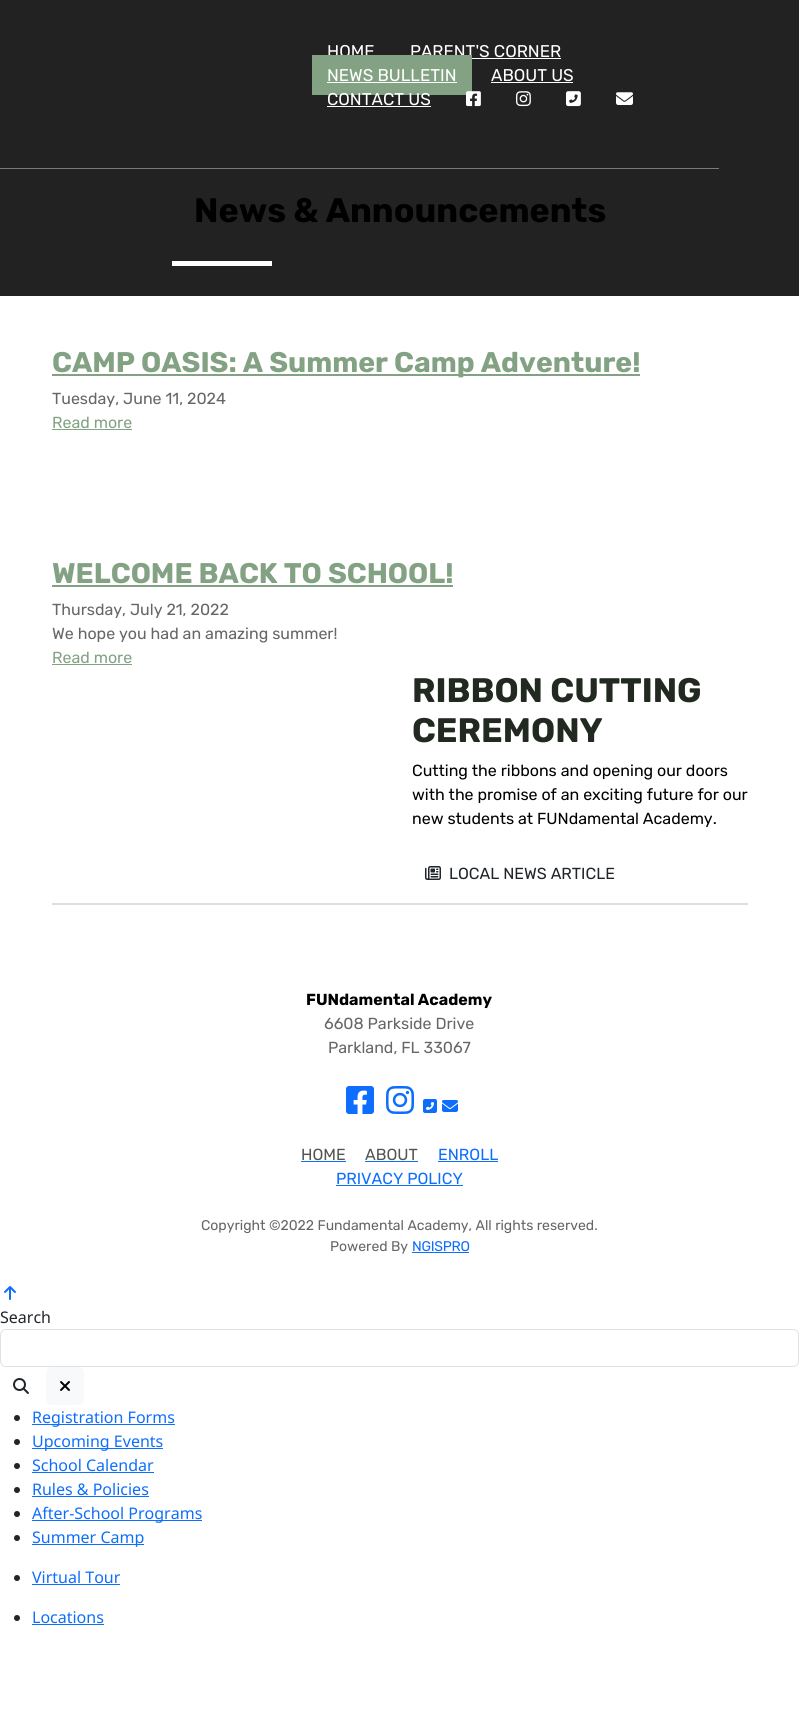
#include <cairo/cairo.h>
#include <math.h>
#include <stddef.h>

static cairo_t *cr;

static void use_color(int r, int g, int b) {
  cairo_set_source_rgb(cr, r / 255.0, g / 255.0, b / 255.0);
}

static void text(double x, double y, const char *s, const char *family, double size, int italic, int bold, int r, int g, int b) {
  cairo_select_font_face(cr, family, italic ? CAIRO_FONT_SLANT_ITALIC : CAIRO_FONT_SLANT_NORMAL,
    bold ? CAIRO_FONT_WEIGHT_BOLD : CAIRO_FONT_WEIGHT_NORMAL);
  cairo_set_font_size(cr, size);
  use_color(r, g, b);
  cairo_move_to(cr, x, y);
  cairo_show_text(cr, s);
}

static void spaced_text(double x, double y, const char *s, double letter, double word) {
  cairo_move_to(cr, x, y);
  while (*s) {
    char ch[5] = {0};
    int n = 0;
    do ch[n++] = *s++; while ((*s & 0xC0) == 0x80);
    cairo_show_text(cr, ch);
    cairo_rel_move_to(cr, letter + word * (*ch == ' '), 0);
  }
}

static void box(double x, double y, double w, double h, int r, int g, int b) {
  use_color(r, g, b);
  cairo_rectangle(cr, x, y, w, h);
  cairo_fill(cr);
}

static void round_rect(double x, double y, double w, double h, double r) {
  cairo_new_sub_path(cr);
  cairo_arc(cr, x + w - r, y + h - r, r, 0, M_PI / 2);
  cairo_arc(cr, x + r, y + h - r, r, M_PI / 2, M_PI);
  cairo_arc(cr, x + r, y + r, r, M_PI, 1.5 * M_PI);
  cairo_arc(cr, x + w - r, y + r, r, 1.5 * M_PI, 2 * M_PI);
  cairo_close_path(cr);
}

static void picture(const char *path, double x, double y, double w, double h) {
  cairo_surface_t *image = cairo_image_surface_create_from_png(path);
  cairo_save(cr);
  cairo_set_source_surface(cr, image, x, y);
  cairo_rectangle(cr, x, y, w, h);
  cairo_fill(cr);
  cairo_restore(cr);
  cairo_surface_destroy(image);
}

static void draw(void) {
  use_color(255, 255, 255);
  cairo_paint(cr);
  box(0, 0, 799, 296, 34, 34, 34);
  box(0, 168, 719, 1, 122, 122, 122);
  box(472, 58, 89, 1, 255, 255, 255);
  box(491, 82, 82, 1, 255, 255, 255);
  box(327, 106, 104, 1, 255, 255, 255);
  picture("img_02.png", 516, 91, 15, 16);
  picture("img_03.png", 566, 91, 15, 16);
  picture("img_04.png", 616, 92, 17, 13);
  box(172, 261, 100, 5, 255, 255, 255);
  box(52, 374, 588, 2, 131, 162, 131);
  box(52, 429, 80, 1, 131, 162, 131);
  box(52, 585, 401, 2, 131, 162, 131);
  box(52, 664, 80, 1, 131, 162, 131);
  picture("img_05.png", 425, 866, 16, 14);
  box(52, 903, 696, 2, 222, 222, 222);
  picture("img_06.png", 346, 1086, 28, 28);
  picture("img_07.png", 386, 1086, 28, 28);
  picture("img_08.png", 423, 1099, 14, 14);
  picture("img_09.png", 442, 1100, 16, 12);
  box(301, 1161, 45, 1, 13, 110, 253);
  box(365, 1161, 53, 1, 13, 110, 253);
  box(438, 1161, 60, 1, 13, 110, 253);
  box(336, 1185, 127, 1, 13, 110, 253);
  box(412, 1252, 57, 1, 13, 110, 253);
  picture("img_10.png", 4, 1286, 12, 14);
  round_rect(0.5, 1329.5, 798, 37, 5.5);
  use_color(222, 226, 230);
  cairo_set_line_width(cr, 1);
  cairo_stroke(cr);
  picture("img_11.png", 13, 1378, 16, 16);
  use_color(248, 249, 250);
  round_rect(46, 1367, 38, 38, 6);
  cairo_fill(cr);
  picture("img_12.png", 60, 1381, 10, 10);
  use_color(33, 37, 41);
  cairo_arc(cr, 17, 1418, 3, 0, 2 * M_PI);
  cairo_fill(cr);
  box(32, 1424, 143, 1, 13, 110, 253);
  use_color(33, 37, 41);
  cairo_arc(cr, 17, 1442, 3, 0, 2 * M_PI);
  cairo_fill(cr);
  box(32, 1448, 131, 1, 13, 110, 253);
  use_color(33, 37, 41);
  cairo_arc(cr, 17, 1466, 3, 0, 2 * M_PI);
  cairo_fill(cr);
  box(32, 1472, 122, 1, 13, 110, 253);
  use_color(33, 37, 41);
  cairo_arc(cr, 17, 1490, 3, 0, 2 * M_PI);
  cairo_fill(cr);
  box(32, 1496, 117, 1, 13, 110, 253);
  use_color(33, 37, 41);
  cairo_arc(cr, 17, 1514, 3, 0, 2 * M_PI);
  cairo_fill(cr);
  box(32, 1520, 170, 1, 13, 110, 253);
  use_color(33, 37, 41);
  cairo_arc(cr, 17, 1538, 3, 0, 2 * M_PI);
  cairo_fill(cr);
  box(32, 1544, 112, 1, 13, 110, 253);
  use_color(33, 37, 41);
  cairo_arc(cr, 17, 1578, 3, 0, 2 * M_PI);
  cairo_fill(cr);
  box(32, 1584, 88, 1, 13, 110, 253);
  use_color(33, 37, 41);
  cairo_arc(cr, 17, 1618, 3, 0, 2 * M_PI);
  cairo_fill(cr);
  box(32, 1624, 72, 1, 13, 110, 253);
  text(327, 57, "HOME", "Rubik", 17, 0, 0, 255, 255, 255);
  text(410, 57, "PARENT'S CORNER", "Rubik", 17, 0, 0, 255, 255, 255);
  box(312, 55, 160, 40, 131, 162, 131);
  text(327, 81, "NEWS BULLETIN", "Rubik", 17, 0, 0, 255, 255, 255);
  box(327, 82, 130, 1, 255, 255, 255);
  text(491, 81, "ABOUT US", "Rubik", 17, 0, 0, 255, 255, 255);
  text(327, 105, "CONTACT US", "Rubik", 17, 0, 0, 255, 255, 255);
  picture("img_01.png", 466, 91, 15, 16);
  text(194, 222, "News & Announcements", "Rubik", 34, 0, 1, 0, 0, 0);
  text(52, 372, "CAMP OASIS: A Summer Camp Adventure!", "Rubik", 28.4, 0, 1, 131, 162, 131);
  text(52, 404, "Tuesday, June 11, 2024", "Rubik", 16, 0, 0, 102, 102, 102);
  text(52, 428, "Read more", "Rubik", 16, 0, 0, 131, 162, 131);
  text(52, 583, "WELCOME BACK TO SCHOOL!", "Rubik", 28.4, 0, 1, 131, 162, 131);
  text(52, 615, "Thursday, July 21, 2022", "Rubik", 16, 0, 0, 102, 102, 102);
  text(52, 639, "We hope you had an amazing summer!", "Rubik", 16, 0, 0, 102, 102, 102);
  text(52, 663, "Read more", "Rubik", 16, 0, 0, 131, 162, 131);
  text(412, 702, "RIBBON CUTTING", "Rubik", 34, 0, 1, 33, 41, 33);
  text(412, 742, "CEREMONY", "Rubik", 34, 0, 1, 33, 41, 33);
  text(412, 776, "Cutting the ribbons and opening our doors", "Rubik", 16, 0, 0, 0, 0, 0);
  text(412, 800, "with the promise of an exciting future for our", "Rubik", 16, 0, 0, 0, 0, 0);
  text(412, 824, "new students at FUNdamental Academy.", "Rubik", 16, 0, 0, 0, 0, 0);
  text(449, 879, "LOCAL NEWS ARTICLE", "Rubik", 16, 0, 0, 33, 37, 41);
  text(306, 1005, "FUNdamental Academy", "Rubik", 16, 0, 1, 0, 0, 0);
  text(324, 1029, "6608 Parkside Drive", "Rubik", 16, 0, 0, 102, 102, 102);
  text(328, 1053, "Parkland, FL 33067", "Rubik", 16, 0, 0, 102, 102, 102);
  text(301, 1160, "HOME", "Rubik", 16, 0, 0, 84, 84, 84);
  text(365, 1160, "ABOUT", "Rubik", 16, 0, 0, 84, 84, 84);
  text(438, 1160, "ENROLL", "Rubik", 16, 0, 0, 13, 110, 253);
  text(336, 1184, "PRIVACY POLICY", "Rubik", 16, 0, 0, 13, 110, 253);
  text(201, 1230, "Copyright ©2022 Fundamental Academy, All rights reserved.", "Rubik", 14, 0, 0, 102, 102, 102);
  text(330, 1251, "Powered By", "Rubik", 14, 0, 0, 102, 102, 102);
  use_color(13, 110, 253);
  spaced_text(412, 1251, "NGISPRO", -0.25, 0);
  text(0, 1323, "Search", "Noto Sans", 16, 0, 0, 33, 37, 41);
  text(32, 1423, "Registration Forms", "Noto Sans", 16, 0, 0, 13, 110, 253);
  text(32, 1447, "Upcoming Events", "Noto Sans", 16, 0, 0, 13, 110, 253);
  text(32, 1471, "School Calendar", "Noto Sans", 16, 0, 0, 13, 110, 253);
  text(32, 1495, "Rules & Policies", "Noto Sans", 16, 0, 0, 13, 110, 253);
  text(32, 1519, "After-School Programs", "Noto Sans", 16, 0, 0, 13, 110, 253);
  text(32, 1543, "Summer Camp", "Noto Sans", 16, 0, 0, 13, 110, 253);
  text(32, 1583, "Virtual Tour", "Noto Sans", 16, 0, 0, 13, 110, 253);
  text(32, 1623, "Locations", "Noto Sans", 16, 0, 0, 13, 110, 253);
}

int main(void) {
  cairo_surface_t *surface = cairo_image_surface_create(CAIRO_FORMAT_RGB24, 799, 1731);
  cr = cairo_create(surface);
  cairo_font_options_t *options = cairo_font_options_create();
  cairo_font_options_set_hint_metrics(options, CAIRO_HINT_METRICS_OFF);
  cairo_font_options_set_hint_style(options, CAIRO_HINT_STYLE_NONE);
  cairo_set_font_options(cr, options);
  cairo_set_miter_limit(cr, 4);
  draw();
  cairo_surface_write_to_png(surface, "out.png");
  cairo_font_options_destroy(options);
  cairo_destroy(cr);
  cairo_surface_destroy(surface);
  return 0;
}
